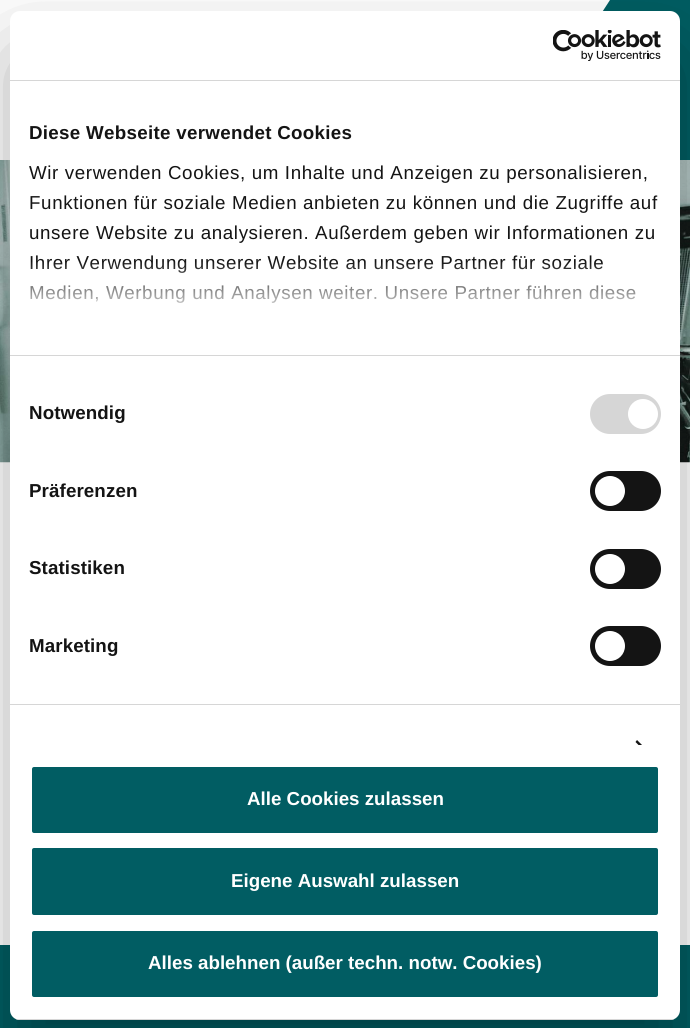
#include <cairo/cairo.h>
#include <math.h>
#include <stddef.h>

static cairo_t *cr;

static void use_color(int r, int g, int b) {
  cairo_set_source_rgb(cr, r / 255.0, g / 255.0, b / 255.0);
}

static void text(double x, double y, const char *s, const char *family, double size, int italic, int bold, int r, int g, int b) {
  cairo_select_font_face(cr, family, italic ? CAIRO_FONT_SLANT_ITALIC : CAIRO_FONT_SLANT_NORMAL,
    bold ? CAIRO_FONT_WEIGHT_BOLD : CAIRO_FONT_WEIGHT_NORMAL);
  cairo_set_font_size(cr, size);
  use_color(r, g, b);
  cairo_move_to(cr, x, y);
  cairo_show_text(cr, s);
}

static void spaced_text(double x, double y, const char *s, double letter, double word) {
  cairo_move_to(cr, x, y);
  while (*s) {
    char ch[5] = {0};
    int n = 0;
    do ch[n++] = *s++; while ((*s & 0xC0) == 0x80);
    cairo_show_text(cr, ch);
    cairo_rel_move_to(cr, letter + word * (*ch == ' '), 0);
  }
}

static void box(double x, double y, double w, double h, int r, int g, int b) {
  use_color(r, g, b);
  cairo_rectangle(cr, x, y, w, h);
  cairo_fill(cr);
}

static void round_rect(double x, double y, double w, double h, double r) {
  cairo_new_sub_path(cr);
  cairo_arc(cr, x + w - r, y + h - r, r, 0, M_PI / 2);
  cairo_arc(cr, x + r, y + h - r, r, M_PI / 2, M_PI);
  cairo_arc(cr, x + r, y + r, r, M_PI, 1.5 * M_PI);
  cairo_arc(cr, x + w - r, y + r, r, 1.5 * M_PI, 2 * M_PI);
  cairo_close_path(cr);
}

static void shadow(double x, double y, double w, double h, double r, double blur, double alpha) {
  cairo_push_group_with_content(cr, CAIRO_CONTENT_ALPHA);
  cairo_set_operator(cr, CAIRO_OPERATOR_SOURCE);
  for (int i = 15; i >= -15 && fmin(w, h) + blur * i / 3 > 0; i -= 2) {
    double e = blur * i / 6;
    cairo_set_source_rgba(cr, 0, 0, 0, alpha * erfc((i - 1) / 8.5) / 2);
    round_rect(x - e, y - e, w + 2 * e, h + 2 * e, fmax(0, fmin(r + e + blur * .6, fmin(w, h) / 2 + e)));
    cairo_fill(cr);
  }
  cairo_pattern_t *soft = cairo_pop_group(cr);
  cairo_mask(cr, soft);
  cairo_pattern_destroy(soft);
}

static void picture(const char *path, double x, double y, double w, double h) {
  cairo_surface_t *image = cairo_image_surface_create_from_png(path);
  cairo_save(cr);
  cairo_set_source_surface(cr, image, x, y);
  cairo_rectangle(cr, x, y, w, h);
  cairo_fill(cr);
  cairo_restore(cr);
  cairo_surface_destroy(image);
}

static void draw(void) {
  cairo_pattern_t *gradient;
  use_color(255, 255, 255);
  cairo_paint(cr);
  box(602, 0, 88, 160, 0, 94, 99);
  use_color(255, 255, 255);
  cairo_new_path(cr);
  cairo_move_to(cr, -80, 0);
  cairo_line_to(cr, 610, 0);
  cairo_line_to(cr, 506, 160);
  cairo_line_to(cr, -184, 160);
  cairo_close_path(cr);
  cairo_fill(cr);
  picture("img_01.png", 0, 160, 690, 303);
  box(0, 945, 690, 83, 0, 94, 99);
  use_color(0, 0, 0);
  shadow(10, 51, 670, 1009, 10, 42.5, 0.3);
  use_color(255, 255, 255);
  round_rect(10, 11, 670, 1009, 10);
  cairo_fill(cr);
  box(10, 80, 670, 1, 214, 214, 214);
  picture("img_02.png", 553, 30, 108, 31);
  box(10, 355, 670, 1, 214, 214, 214);
  box(10, 704, 670, 1, 214, 214, 214);
  round_rect(590, 394, 71, 40, 20);
  cairo_fill(cr);
  use_color(255, 255, 255);
  cairo_arc(cr, 643, 414, 15, 0, 2 * M_PI);
  cairo_fill(cr);
  use_color(20, 20, 20);
  round_rect(590, 471, 71, 40, 20);
  cairo_fill(cr);
  use_color(255, 255, 255);
  cairo_arc(cr, 610, 491, 15, 0, 2 * M_PI);
  cairo_fill(cr);
  use_color(20, 20, 20);
  round_rect(590, 549, 71, 40, 20);
  cairo_fill(cr);
  use_color(255, 255, 255);
  cairo_arc(cr, 610, 569, 15, 0, 2 * M_PI);
  cairo_fill(cr);
  use_color(20, 20, 20);
  round_rect(590, 626, 71, 40, 20);
  cairo_fill(cr);
  use_color(255, 255, 255);
  cairo_arc(cr, 610, 646, 15, 0, 2 * M_PI);
  cairo_fill(cr);
  cairo_save(cr);
  cairo_rectangle(cr, 10, 81, 670, 664);
  cairo_clip(cr);
  use_color(20, 20, 20);
  cairo_new_path(cr);
  cairo_move_to(cr, 637, 740);
  cairo_line_to(cr, 644.5, 747.5);
  cairo_line_to(cr, 643, 749.5);
  cairo_line_to(cr, 635.5, 742);
  cairo_close_path(cr);
  cairo_fill(cr);
  cairo_restore(cr);
  cairo_save(cr);
  round_rect(10, 11, 670, 1009, 10);
  cairo_clip(cr);
  box(10, 1019, 670, 1, 214, 214, 214);
  cairo_restore(cr);
  use_color(1, 93, 99);
  round_rect(30.5, 765.5, 629, 69, 3.5);
  cairo_fill_preserve(cr);
  use_color(255, 255, 255);
  cairo_set_line_width(cr, 3);
  cairo_stroke(cr);
  use_color(1, 93, 99);
  round_rect(30.5, 846.5, 629, 70, 3.5);
  cairo_fill_preserve(cr);
  use_color(255, 255, 255);
  cairo_stroke(cr);
  use_color(1, 93, 99);
  round_rect(30.5, 929.5, 629, 69, 3.5);
  cairo_fill_preserve(cr);
  use_color(255, 255, 255);
  cairo_stroke(cr);
  cairo_select_font_face(cr, "Liberation Sans", CAIRO_FONT_SLANT_NORMAL, CAIRO_FONT_WEIGHT_BOLD);
  cairo_set_font_size(cr, 18.75);
  use_color(20, 20, 20);
  spaced_text(29, 139, "Diese Webseite verwendet Cookies", 0.3, 0);
  cairo_select_font_face(cr, "Liberation Sans", CAIRO_FONT_SLANT_NORMAL, CAIRO_FONT_WEIGHT_NORMAL);
  spaced_text(29, 179, "Wir verwenden Cookies, um Inhalte und Anzeigen zu personalisieren,", 0.62, 0);
  spaced_text(29, 209, "Funktionen für soziale Medien anbieten zu können und die Zugriffe auf", 0.62, 0);
  spaced_text(29, 239, "unsere Website zu analysieren. Außerdem geben wir Informationen zu", 0.62, 0);
  spaced_text(29, 269, "Ihrer Verwendung unserer Website an unsere Partner für soziale", 0.62, 0);
  spaced_text(29, 299, "Medien, Werbung und Analysen weiter. Unsere Partner führen diese", 0.62, 0);
  gradient = cairo_pattern_create_linear(337, 354, 337, 261);
  cairo_pattern_add_color_stop_rgba(gradient, 0, 1, 1, 1, 1);
  cairo_pattern_add_color_stop_rgba(gradient, 0.5, 1, 1, 1, 0.8);
  cairo_pattern_add_color_stop_rgba(gradient, 1, 1, 1, 1, 0);
  cairo_set_source(cr, gradient);
  cairo_pattern_destroy(gradient);
  cairo_rectangle(cr, 30, 262, 606, 41);
  cairo_fill(cr);
  cairo_select_font_face(cr, "Liberation Sans", CAIRO_FONT_SLANT_NORMAL, CAIRO_FONT_WEIGHT_BOLD);
  use_color(20, 20, 20);
  spaced_text(29, 419, "Notwendig", 0.1, 0);
  spaced_text(29, 497, "Präferenzen", 0.1, 0);
  spaced_text(29, 574, "Statistiken", 0.1, 0);
  spaced_text(29, 652, "Marketing", 0.1, 0);
  text(247, 805, "Alle Cookies zulassen", "Liberation Sans", 18.75, 0, 1, 255, 255, 255);
  text(231, 887, "Eigene Auswahl zulassen", "Liberation Sans", 18.75, 0, 1, 255, 255, 255);
  text(148, 969, "Alles ablehnen (außer techn. notw. Cookies)", "Liberation Sans", 18.75, 0, 1, 255, 255, 255);
}

int main(void) {
  cairo_surface_t *surface = cairo_image_surface_create(CAIRO_FORMAT_RGB24, 690, 1028);
  cr = cairo_create(surface);
  cairo_font_options_t *options = cairo_font_options_create();
  cairo_font_options_set_hint_metrics(options, CAIRO_HINT_METRICS_OFF);
  cairo_font_options_set_hint_style(options, CAIRO_HINT_STYLE_NONE);
  cairo_set_font_options(cr, options);
  cairo_set_miter_limit(cr, 4);
  draw();
  cairo_surface_write_to_png(surface, "out.png");
  cairo_font_options_destroy(options);
  cairo_destroy(cr);
  cairo_surface_destroy(surface);
  return 0;
}
